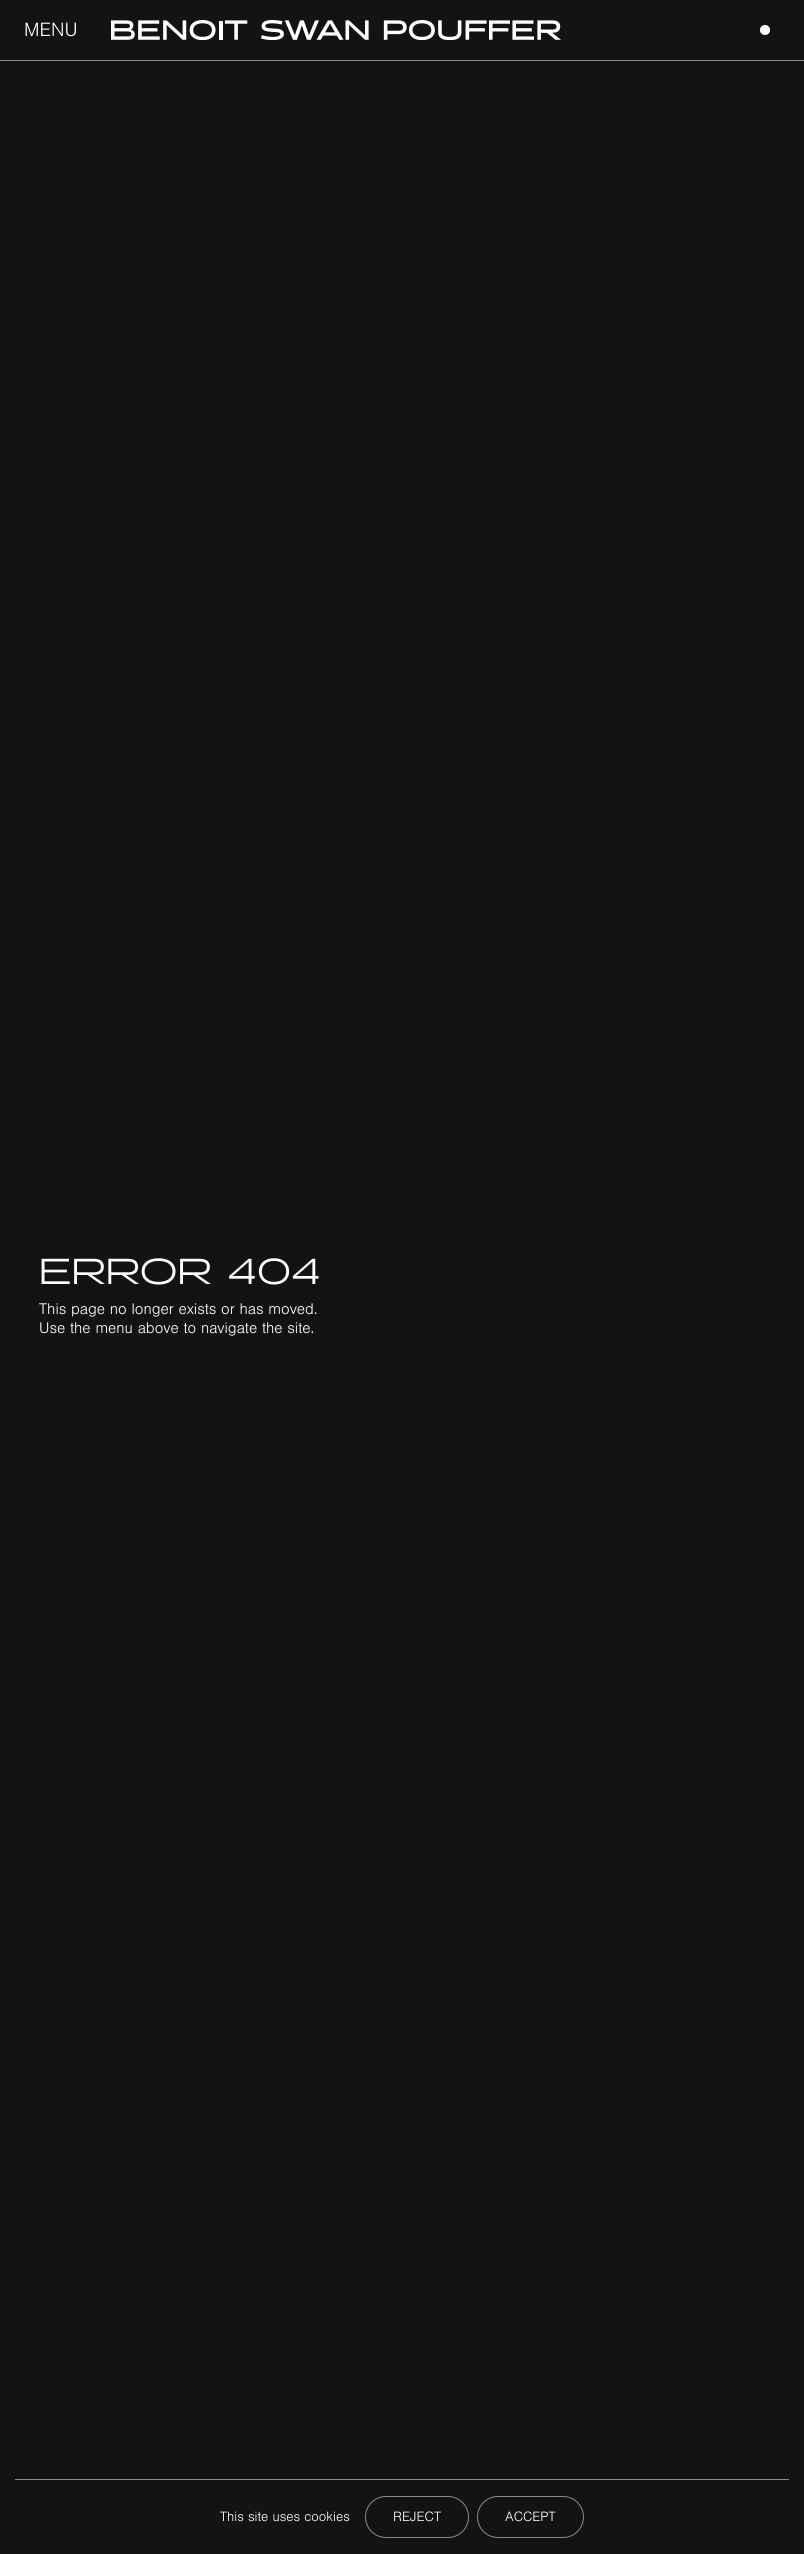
#include <cairo/cairo.h>
#include <math.h>
#include <stddef.h>

static cairo_t *cr;

static void use_color(int r, int g, int b) {
  cairo_set_source_rgb(cr, r / 255.0, g / 255.0, b / 255.0);
}

static void text(double x, double y, const char *s, const char *family, double size, int italic, int bold, int r, int g, int b) {
  cairo_select_font_face(cr, family, italic ? CAIRO_FONT_SLANT_ITALIC : CAIRO_FONT_SLANT_NORMAL,
    bold ? CAIRO_FONT_WEIGHT_BOLD : CAIRO_FONT_WEIGHT_NORMAL);
  cairo_set_font_size(cr, size);
  use_color(r, g, b);
  cairo_move_to(cr, x, y);
  cairo_show_text(cr, s);
}

static void box(double x, double y, double w, double h, int r, int g, int b) {
  use_color(r, g, b);
  cairo_rectangle(cr, x, y, w, h);
  cairo_fill(cr);
}

static void round_rect(double x, double y, double w, double h, double r) {
  cairo_new_sub_path(cr);
  cairo_arc(cr, x + w - r, y + h - r, r, 0, M_PI / 2);
  cairo_arc(cr, x + r, y + h - r, r, M_PI / 2, M_PI);
  cairo_arc(cr, x + r, y + r, r, M_PI, 1.5 * M_PI);
  cairo_arc(cr, x + w - r, y + r, r, 1.5 * M_PI, 2 * M_PI);
  cairo_close_path(cr);
}

static void picture(const char *path, double x, double y, double w, double h) {
  cairo_surface_t *image = cairo_image_surface_create_from_png(path);
  cairo_save(cr);
  cairo_set_source_surface(cr, image, x, y);
  cairo_rectangle(cr, x, y, w, h);
  cairo_fill(cr);
  cairo_restore(cr);
  cairo_surface_destroy(image);
}

static void draw(void) {
  use_color(20, 19, 19);
  cairo_paint(cr);
  box(0, 60, 804, 1, 138, 137, 137);
  picture("img_01.png", 111, 20, 450, 20);
  use_color(255, 255, 255);
  cairo_arc(cr, 765, 30, 5, 0, 2 * M_PI);
  cairo_fill(cr);
  box(15, 2479, 774, 1, 138, 137, 137);
  round_rect(365.5, 2496.5, 103, 41, 20.5);
  cairo_set_line_width(cr, 1);
  cairo_stroke(cr);
  round_rect(477.5, 2496.5, 106, 41, 20.5);
  cairo_stroke(cr);
  text(24, 36, "MENU", "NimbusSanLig", 20, 0, 0, 255, 255, 255);
  text(39, 1284, "ERROR 404", "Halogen", 36, 0, 0, 255, 255, 255);
  text(39, 1314, "This page no longer exists or has moved.", "NimbusSanLig", 16, 0, 0, 255, 255, 255);
  text(39, 1333, "Use the menu above to navigate the site.", "NimbusSanLig", 16, 0, 0, 255, 255, 255);
  text(220, 2521, "This site uses cookies", "NimbusSanLig", 14, 0, 0, 255, 255, 255);
  text(393, 2521, "REJECT", "NimbusSanLig", 14, 0, 0, 255, 255, 255);
  text(505, 2521, "ACCEPT", "NimbusSanLig", 14, 0, 0, 255, 255, 255);
}

int main(void) {
  cairo_surface_t *surface = cairo_image_surface_create(CAIRO_FORMAT_RGB24, 804, 2554);
  cr = cairo_create(surface);
  cairo_font_options_t *options = cairo_font_options_create();
  cairo_font_options_set_hint_metrics(options, CAIRO_HINT_METRICS_OFF);
  cairo_font_options_set_hint_style(options, CAIRO_HINT_STYLE_NONE);
  cairo_set_font_options(cr, options);
  cairo_set_miter_limit(cr, 4);
  draw();
  cairo_surface_write_to_png(surface, "out.png");
  cairo_font_options_destroy(options);
  cairo_destroy(cr);
  cairo_surface_destroy(surface);
  return 0;
}
